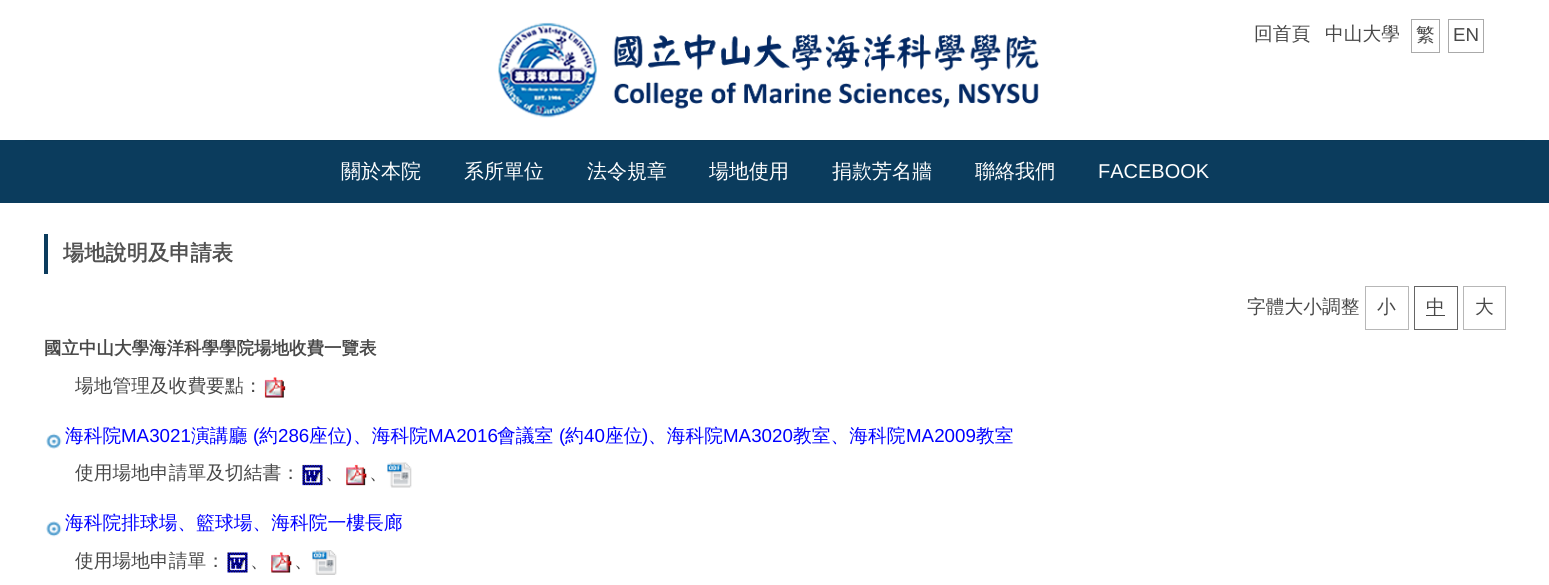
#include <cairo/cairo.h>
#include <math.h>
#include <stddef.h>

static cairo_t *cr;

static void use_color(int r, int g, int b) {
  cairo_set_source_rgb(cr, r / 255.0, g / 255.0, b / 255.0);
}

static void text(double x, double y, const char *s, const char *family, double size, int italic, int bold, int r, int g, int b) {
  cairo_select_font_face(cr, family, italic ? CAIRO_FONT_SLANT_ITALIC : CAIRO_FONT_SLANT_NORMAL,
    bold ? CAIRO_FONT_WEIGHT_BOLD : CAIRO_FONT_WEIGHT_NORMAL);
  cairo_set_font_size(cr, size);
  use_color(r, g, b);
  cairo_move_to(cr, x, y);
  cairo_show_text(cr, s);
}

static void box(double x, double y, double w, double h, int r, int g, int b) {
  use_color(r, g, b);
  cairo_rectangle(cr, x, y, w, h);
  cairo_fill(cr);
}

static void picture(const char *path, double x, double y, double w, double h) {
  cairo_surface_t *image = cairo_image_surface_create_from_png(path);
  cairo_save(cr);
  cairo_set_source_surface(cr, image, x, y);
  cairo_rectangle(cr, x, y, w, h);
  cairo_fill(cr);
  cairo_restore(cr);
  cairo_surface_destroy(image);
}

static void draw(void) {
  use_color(255, 255, 255);
  cairo_paint(cr);
  picture("img_01.png", 498, 22, 541, 96);
  box(0, 140, 1549, 63, 11, 60, 93);
  box(25, 140, 1500, 1, 10, 57, 88);
  cairo_rectangle(cr, 1411.5, 19.5, 28, 33);
  use_color(170, 170, 170);
  cairo_set_line_width(cr, 1);
  cairo_stroke(cr);
  cairo_rectangle(cr, 1448.5, 19.5, 35, 33);
  cairo_stroke(cr);
  box(44, 234, 4, 40, 11, 60, 93);
  cairo_rectangle(cr, 1365.5, 286.5, 43, 43);
  use_color(183, 183, 183);
  cairo_stroke(cr);
  cairo_rectangle(cr, 1414.5, 286.5, 43, 43);
  use_color(101, 101, 101);
  cairo_stroke(cr);
  box(1426, 315, 19, 1, 72, 72, 72);
  cairo_rectangle(cr, 1463.5, 286.5, 42, 43);
  use_color(183, 183, 183);
  cairo_stroke(cr);
  picture("img_02.png", 264, 377, 22, 21);
  picture("img_03.png", 46, 433, 16, 16);
  picture("img_04.png", 302, 464, 21, 22);
  picture("img_05.png", 346, 464, 21, 22);
  picture("img_06.png", 387, 462, 25, 26);
  picture("img_07.png", 46, 521, 16, 16);
  picture("img_08.png", 227, 552, 21, 21);
  picture("img_09.png", 271, 552, 21, 21);
  picture("img_10.png", 312, 550, 25, 25);
  text(1254, 40, "回首頁", "WenQuanYi Zen Hei Medium", 18.75, 0, 0, 72, 72, 72);
  text(1325, 40, "中山大學", "WenQuanYi Zen Hei Medium", 18.75, 0, 0, 72, 72, 72);
  text(1416, 41, "繁", "WenQuanYi Zen Hei Medium", 18.75, 0, 0, 72, 72, 72);
  text(1453, 41, "EN", "Liberation Sans", 18.75, 0, 0, 72, 72, 72);
  text(341, 178, "關於本院", "WenQuanYi Zen Hei Medium", 20, 0, 0, 255, 255, 255);
  text(464, 178, "系所單位", "WenQuanYi Zen Hei Medium", 20, 0, 0, 255, 255, 255);
  text(587, 178, "法令規章", "WenQuanYi Zen Hei Medium", 20, 0, 0, 255, 255, 255);
  text(709, 178, "場地使用", "WenQuanYi Zen Hei Medium", 20, 0, 0, 255, 255, 255);
  text(832, 178, "捐款芳名牆", "WenQuanYi Zen Hei Medium", 20, 0, 0, 255, 255, 255);
  text(975, 178, "聯絡我們", "WenQuanYi Zen Hei Medium", 20, 0, 0, 255, 255, 255);
  text(1098, 178, "FACEBOOK", "Liberation Sans", 20, 0, 0, 255, 255, 255);
  text(63, 260, "場地說明及申請表", "WenQuanYi Zen Hei", 21.25, 0, 1, 82, 82, 82);
  text(1247, 313, "字體大小調整", "WenQuanYi Zen Hei Medium", 18.75, 0, 0, 72, 72, 72);
  text(1377, 313, "小", "WenQuanYi Zen Hei Medium", 18.75, 0, 0, 72, 72, 72);
  text(1426, 313, "中", "WenQuanYi Zen Hei Medium", 18.75, 0, 0, 72, 72, 72);
  text(1475, 313, "大", "WenQuanYi Zen Hei Medium", 18.75, 0, 0, 72, 72, 72);
  text(44, 354, "國立中山大學海洋科學學院場地收費一覽表", "WenQuanYi Zen Hei", 17.5, 0, 1, 72, 72, 72);
  text(75, 392, "場地管理及收費要點：", "WenQuanYi Zen Hei Medium", 18.75, 0, 0, 72, 72, 72);
  text(65, 442, "海科院", "WenQuanYi Zen Hei Medium", 18.75, 0, 0, 0, 0, 255);
  text(121, 442, "MA3021", "Liberation Sans", 18.75, 0, 0, 0, 0, 255);
  text(191, 442, "演講廳", "WenQuanYi Zen Hei Medium", 18.75, 0, 0, 0, 0, 255);
  text(253, 442, "(", "Liberation Sans", 18.75, 0, 0, 0, 0, 255);
  text(259, 442, "約", "WenQuanYi Zen Hei Medium", 18.75, 0, 0, 0, 0, 255);
  text(278, 442, "286", "Liberation Sans", 18.75, 0, 0, 0, 0, 255);
  text(309, 442, "座位", "WenQuanYi Zen Hei Medium", 18.75, 0, 0, 0, 0, 255);
  text(346, 442, ")", "Liberation Sans", 18.75, 0, 0, 0, 0, 255);
  text(353, 442, "、海科院", "WenQuanYi Zen Hei Medium", 18.75, 0, 0, 0, 0, 255);
  text(428, 442, "MA2016", "Liberation Sans", 18.75, 0, 0, 0, 0, 255);
  text(497, 442, "會議室", "WenQuanYi Zen Hei Medium", 18.75, 0, 0, 0, 0, 255);
  text(559, 442, "(", "Liberation Sans", 18.75, 0, 0, 0, 0, 255);
  text(565, 442, "約", "WenQuanYi Zen Hei Medium", 18.75, 0, 0, 0, 0, 255);
  text(584, 442, "40", "Liberation Sans", 18.75, 0, 0, 0, 0, 255);
  text(605, 442, "座位", "WenQuanYi Zen Hei Medium", 18.75, 0, 0, 0, 0, 255);
  text(642, 442, ")", "Liberation Sans", 18.75, 0, 0, 0, 0, 255);
  text(648, 442, "、海科院", "WenQuanYi Zen Hei Medium", 18.75, 0, 0, 0, 0, 255);
  text(723, 442, "MA3020", "Liberation Sans", 18.75, 0, 0, 0, 0, 255);
  text(793, 442, "教室、海科院", "WenQuanYi Zen Hei Medium", 18.75, 0, 0, 0, 0, 255);
  text(906, 442, "MA2009", "Liberation Sans", 18.75, 0, 0, 0, 0, 255);
  text(976, 442, "教室", "WenQuanYi Zen Hei Medium", 18.75, 0, 0, 0, 0, 255);
  text(75, 479, "使用場地申請單及切結書：", "WenQuanYi Zen Hei Medium", 18.75, 0, 0, 72, 72, 72);
  text(325, 479, "、", "WenQuanYi Zen Hei Medium", 18.75, 0, 0, 72, 72, 72);
  text(369, 479, "、", "WenQuanYi Zen Hei Medium", 18.75, 0, 0, 72, 72, 72);
  text(65, 529, "海科院排球場、籃球場、海科院一樓長廊", "WenQuanYi Zen Hei Medium", 18.75, 0, 0, 0, 0, 255);
  text(75, 567, "使用場地申請單：", "WenQuanYi Zen Hei Medium", 18.75, 0, 0, 72, 72, 72);
  text(250, 567, "、", "WenQuanYi Zen Hei Medium", 18.75, 0, 0, 72, 72, 72);
  text(294, 567, "、", "WenQuanYi Zen Hei Medium", 18.75, 0, 0, 72, 72, 72);
}

int main(void) {
  cairo_surface_t *surface = cairo_image_surface_create(CAIRO_FORMAT_RGB24, 1549, 585);
  cr = cairo_create(surface);
  cairo_font_options_t *options = cairo_font_options_create();
  cairo_font_options_set_hint_metrics(options, CAIRO_HINT_METRICS_OFF);
  cairo_font_options_set_hint_style(options, CAIRO_HINT_STYLE_NONE);
  cairo_set_font_options(cr, options);
  cairo_set_miter_limit(cr, 4);
  draw();
  cairo_surface_write_to_png(surface, "out.png");
  cairo_font_options_destroy(options);
  cairo_destroy(cr);
  cairo_surface_destroy(surface);
  return 0;
}
